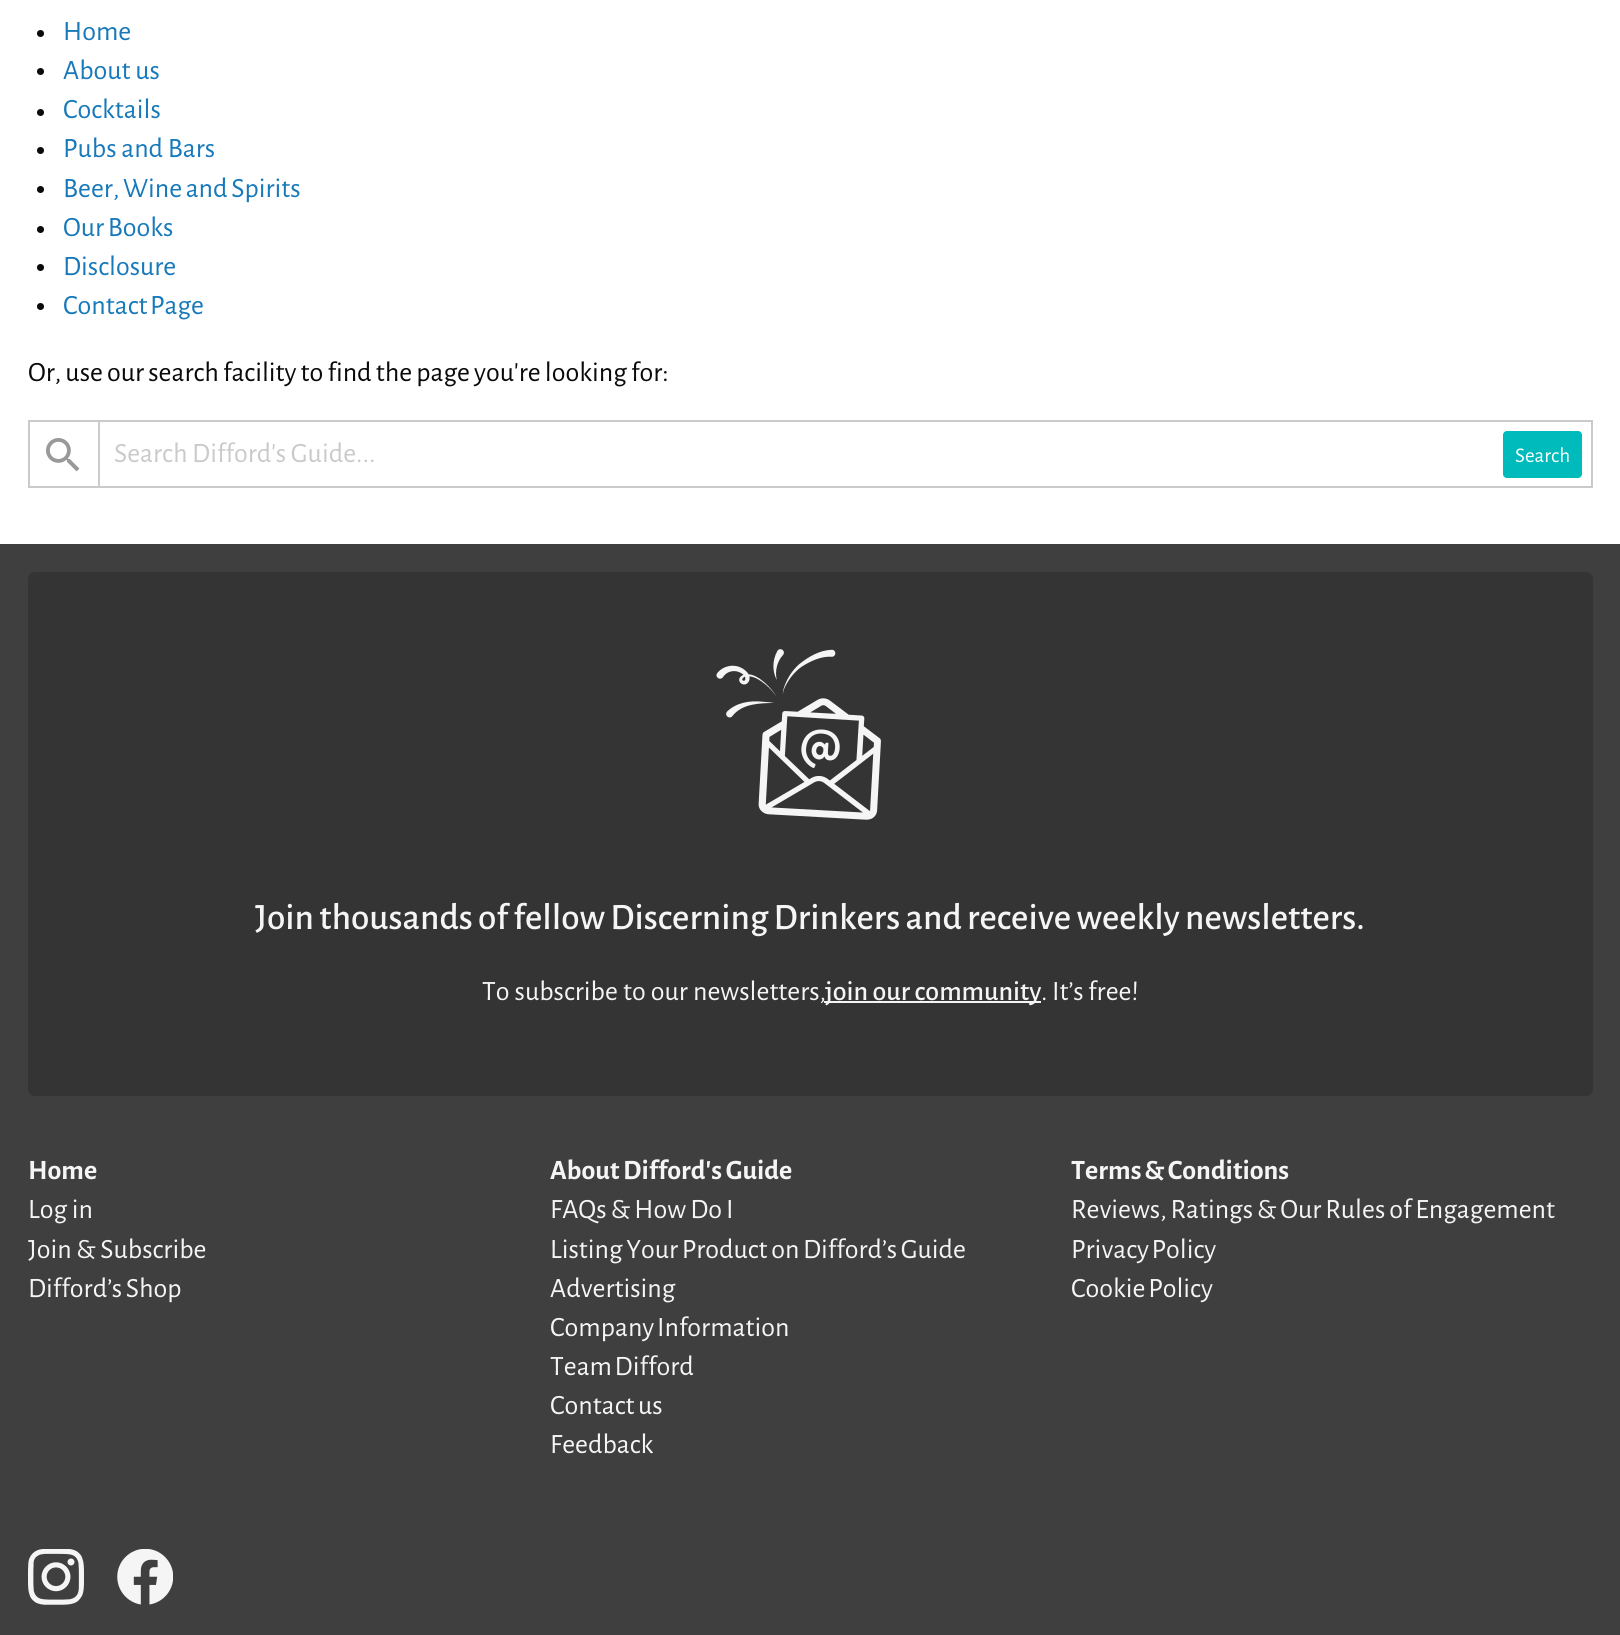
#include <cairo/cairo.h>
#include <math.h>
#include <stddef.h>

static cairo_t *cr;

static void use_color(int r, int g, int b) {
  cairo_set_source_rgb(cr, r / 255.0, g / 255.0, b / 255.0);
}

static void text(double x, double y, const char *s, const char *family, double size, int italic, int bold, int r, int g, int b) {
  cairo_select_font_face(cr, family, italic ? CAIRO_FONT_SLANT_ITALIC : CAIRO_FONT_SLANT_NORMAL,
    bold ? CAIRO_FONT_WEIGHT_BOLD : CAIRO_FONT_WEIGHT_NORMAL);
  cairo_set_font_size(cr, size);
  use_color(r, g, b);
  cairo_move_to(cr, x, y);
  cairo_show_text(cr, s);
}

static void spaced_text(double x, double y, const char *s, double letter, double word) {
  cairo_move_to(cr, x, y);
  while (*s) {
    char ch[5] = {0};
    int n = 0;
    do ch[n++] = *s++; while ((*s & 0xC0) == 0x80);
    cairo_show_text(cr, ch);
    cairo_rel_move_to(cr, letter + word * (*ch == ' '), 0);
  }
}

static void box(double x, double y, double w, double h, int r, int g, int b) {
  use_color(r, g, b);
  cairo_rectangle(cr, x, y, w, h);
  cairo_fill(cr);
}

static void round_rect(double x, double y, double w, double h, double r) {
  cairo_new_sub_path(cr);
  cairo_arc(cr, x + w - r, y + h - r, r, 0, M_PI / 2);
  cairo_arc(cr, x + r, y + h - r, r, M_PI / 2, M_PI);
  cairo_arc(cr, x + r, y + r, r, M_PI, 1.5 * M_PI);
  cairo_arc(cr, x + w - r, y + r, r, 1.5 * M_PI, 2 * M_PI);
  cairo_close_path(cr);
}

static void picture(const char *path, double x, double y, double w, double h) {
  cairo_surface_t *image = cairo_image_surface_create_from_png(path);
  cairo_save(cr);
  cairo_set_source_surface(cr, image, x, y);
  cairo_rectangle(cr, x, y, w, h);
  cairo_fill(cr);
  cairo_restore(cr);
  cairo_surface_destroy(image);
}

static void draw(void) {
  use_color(255, 255, 255);
  cairo_paint(cr);
  use_color(10, 10, 10);
  cairo_arc(cr, 40.5, 33.5, 3.5, 0, 2 * M_PI);
  cairo_fill(cr);
  cairo_arc(cr, 40.5, 71.5, 3.5, 0, 2 * M_PI);
  cairo_fill(cr);
  cairo_arc(cr, 40.5, 112.5, 3.5, 0, 2 * M_PI);
  cairo_fill(cr);
  cairo_arc(cr, 40.5, 150.5, 3.5, 0, 2 * M_PI);
  cairo_fill(cr);
  cairo_arc(cr, 40.5, 189.5, 3.5, 0, 2 * M_PI);
  cairo_fill(cr);
  cairo_arc(cr, 40.5, 229.5, 3.5, 0, 2 * M_PI);
  cairo_fill(cr);
  cairo_arc(cr, 40.5, 267.5, 3.5, 0, 2 * M_PI);
  cairo_fill(cr);
  cairo_arc(cr, 40.5, 306.5, 3.5, 0, 2 * M_PI);
  cairo_fill(cr);
  cairo_rectangle(cr, 29, 421, 1563, 66);
  use_color(202, 202, 202);
  cairo_stroke(cr);
  box(98, 420, 2, 68, 204, 204, 204);
  picture("img_01.png", 46, 438, 34, 34);
  use_color(0, 187, 187);
  round_rect(1503, 431, 79, 47, 4);
  cairo_fill(cr);
  box(0, 544, 1620, 1091, 63, 63, 63);
  use_color(52, 52, 52);
  round_rect(28, 572, 1565, 524, 7);
  cairo_fill(cr);
  picture("img_02.png", 716, 649, 165, 171);
  box(824, 1001, 217, 2, 245, 245, 245);
  picture("img_03.png", 28, 1549, 56, 56);
  picture("img_04.png", 117, 1549, 56, 56);
  text(63, 40, "Home", "Alegreya Sans", 28, 0, 0, 23, 121, 186);
  text(63, 79, "About us", "Alegreya Sans", 28, 0, 0, 23, 121, 186);
  text(63, 118, "Cocktails", "Alegreya Sans", 28, 0, 0, 23, 121, 186);
  text(63, 157, "Pubs and Bars", "Alegreya Sans", 28, 0, 0, 23, 121, 186);
  spaced_text(63, 197, "Beer, Wine and Spirits", 0, -1);
  spaced_text(63, 236, "Our Books", 0, -1);
  text(63, 275, "Disclosure", "Alegreya Sans", 28, 0, 0, 23, 121, 186);
  spaced_text(63, 314, "Contact Page", 0, -2);
  use_color(10, 10, 10);
  spaced_text(28, 381, "Or, use our search facility to find the page you're looking for:", 0, -0.5);
  text(114, 462, "Search Difford's Guide...", "Alegreya Sans", 28, 0, 0, 202, 202, 202);
  text(1515, 462, "Search", "Alegreya Sans", 21, 0, 0, 255, 255, 255);
  cairo_select_font_face(cr, "Alegreya Sans Medium", CAIRO_FONT_SLANT_NORMAL, CAIRO_FONT_WEIGHT_NORMAL);
  cairo_set_font_size(cr, 37.25);
  use_color(245, 245, 245);
  spaced_text(255, 929, "Join thousands of fellow Discerning Drinkers and receive weekly newsletters.", 0, -0.75);
  cairo_select_font_face(cr, "Alegreya Sans", CAIRO_FONT_SLANT_NORMAL, CAIRO_FONT_WEIGHT_NORMAL);
  cairo_set_font_size(cr, 28);
  spaced_text(482, 1000, "To subscribe to our newsletters,", 0, 0.5);
  text(825, 1000, "join our community", "Alegreya Sans Medium", 28, 0, 0, 245, 245, 245);
  text(1041, 1000, ". It’s free!", "Alegreya Sans", 28, 0, 0, 245, 245, 245);
  text(28, 1179, "Home", "Alegreya Sans", 28, 0, 1, 245, 245, 245);
  text(28, 1218, "Log in", "Alegreya Sans", 28, 0, 0, 245, 245, 245);
  text(28, 1258, "Join & Subscribe", "Alegreya Sans", 28, 0, 0, 245, 245, 245);
  spaced_text(28, 1297, "Difford’s Shop", 0, -1);
  cairo_select_font_face(cr, "Alegreya Sans", CAIRO_FONT_SLANT_NORMAL, CAIRO_FONT_WEIGHT_BOLD);
  spaced_text(550, 1179, "About Difford's Guide", 0, -0.5);
  cairo_select_font_face(cr, "Alegreya Sans", CAIRO_FONT_SLANT_NORMAL, CAIRO_FONT_WEIGHT_NORMAL);
  spaced_text(550, 1218, "FAQs & How Do I", 0, -0.5);
  spaced_text(550, 1258, "Listing Your Product on Difford’s Guide", 0, -1);
  text(550, 1297, "Advertising", "Alegreya Sans", 28, 0, 0, 245, 245, 245);
  spaced_text(550, 1336, "Company Information", 0, -2);
  spaced_text(550, 1375, "Team Difford", 0, -2);
  spaced_text(550, 1414, "Contact us", 0, -1);
  text(550, 1453, "Feedback", "Alegreya Sans", 28, 0, 0, 245, 245, 245);
  cairo_select_font_face(cr, "Alegreya Sans", CAIRO_FONT_SLANT_NORMAL, CAIRO_FONT_WEIGHT_BOLD);
  spaced_text(1071, 1179, "Terms & Conditions", 0, -1);
  cairo_select_font_face(cr, "Alegreya Sans", CAIRO_FONT_SLANT_NORMAL, CAIRO_FONT_WEIGHT_NORMAL);
  spaced_text(1071, 1218, "Reviews, Ratings & Our Rules of Engagement", 0, -0.75);
  spaced_text(1071, 1258, "Privacy Policy", 0, -2);
  spaced_text(1071, 1297, "Cookie Policy", 0, -2);
}

int main(void) {
  cairo_surface_t *surface = cairo_image_surface_create(CAIRO_FORMAT_RGB24, 1620, 1635);
  cr = cairo_create(surface);
  cairo_font_options_t *options = cairo_font_options_create();
  cairo_font_options_set_hint_metrics(options, CAIRO_HINT_METRICS_OFF);
  cairo_font_options_set_hint_style(options, CAIRO_HINT_STYLE_NONE);
  cairo_set_font_options(cr, options);
  cairo_set_miter_limit(cr, 4);
  draw();
  cairo_surface_write_to_png(surface, "out.png");
  cairo_font_options_destroy(options);
  cairo_destroy(cr);
  cairo_surface_destroy(surface);
  return 0;
}
